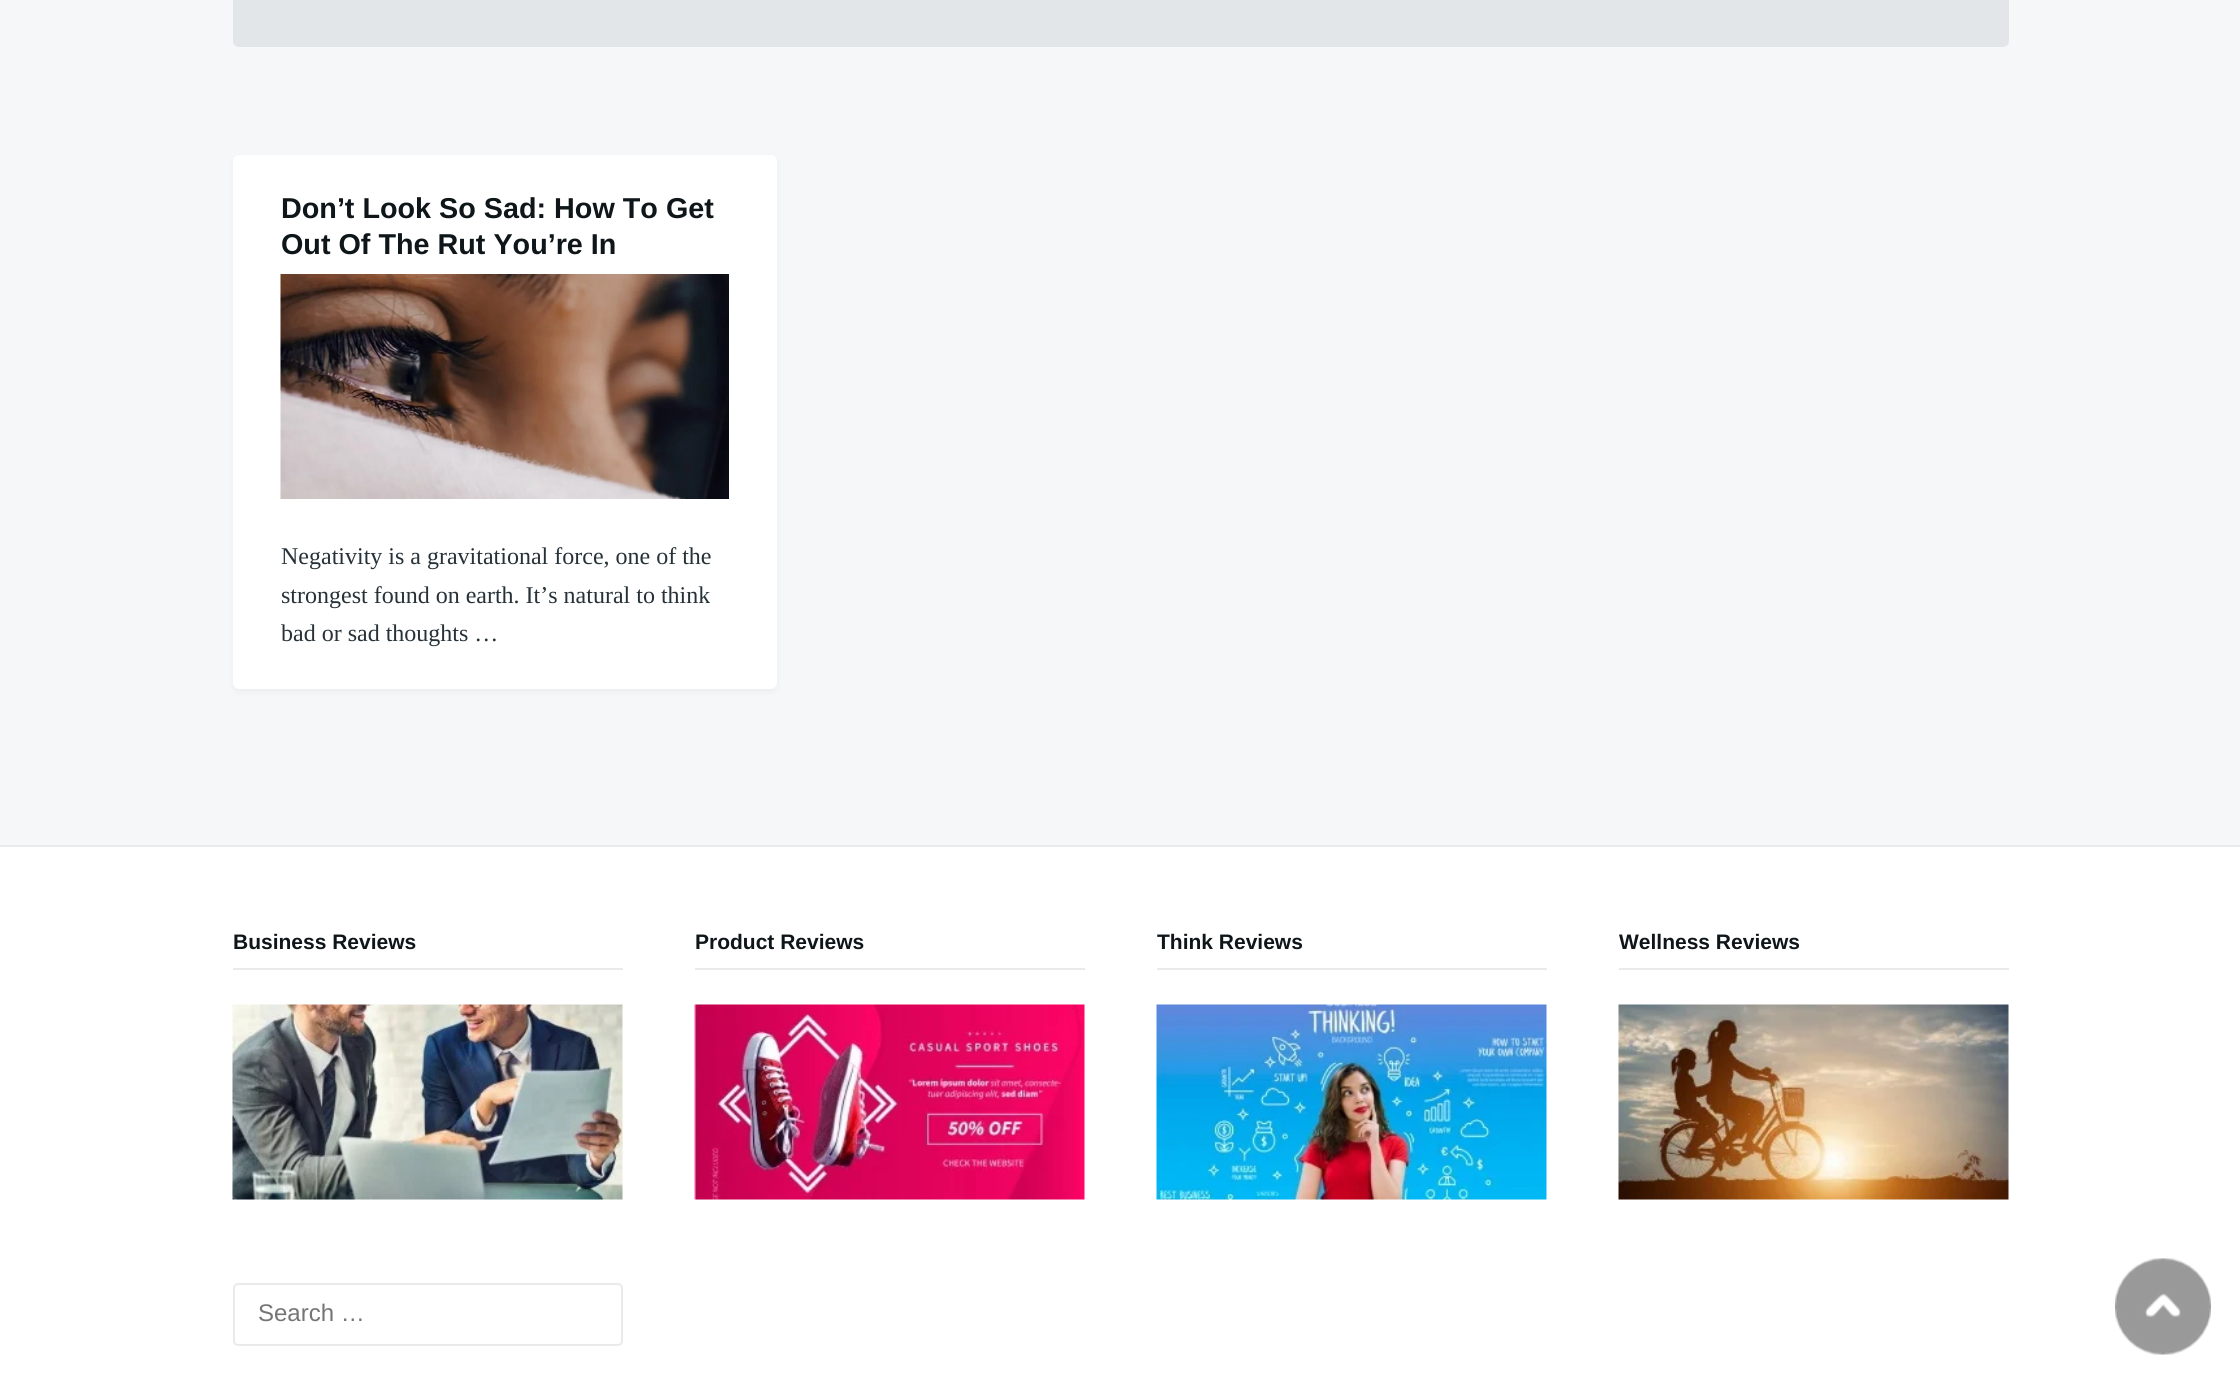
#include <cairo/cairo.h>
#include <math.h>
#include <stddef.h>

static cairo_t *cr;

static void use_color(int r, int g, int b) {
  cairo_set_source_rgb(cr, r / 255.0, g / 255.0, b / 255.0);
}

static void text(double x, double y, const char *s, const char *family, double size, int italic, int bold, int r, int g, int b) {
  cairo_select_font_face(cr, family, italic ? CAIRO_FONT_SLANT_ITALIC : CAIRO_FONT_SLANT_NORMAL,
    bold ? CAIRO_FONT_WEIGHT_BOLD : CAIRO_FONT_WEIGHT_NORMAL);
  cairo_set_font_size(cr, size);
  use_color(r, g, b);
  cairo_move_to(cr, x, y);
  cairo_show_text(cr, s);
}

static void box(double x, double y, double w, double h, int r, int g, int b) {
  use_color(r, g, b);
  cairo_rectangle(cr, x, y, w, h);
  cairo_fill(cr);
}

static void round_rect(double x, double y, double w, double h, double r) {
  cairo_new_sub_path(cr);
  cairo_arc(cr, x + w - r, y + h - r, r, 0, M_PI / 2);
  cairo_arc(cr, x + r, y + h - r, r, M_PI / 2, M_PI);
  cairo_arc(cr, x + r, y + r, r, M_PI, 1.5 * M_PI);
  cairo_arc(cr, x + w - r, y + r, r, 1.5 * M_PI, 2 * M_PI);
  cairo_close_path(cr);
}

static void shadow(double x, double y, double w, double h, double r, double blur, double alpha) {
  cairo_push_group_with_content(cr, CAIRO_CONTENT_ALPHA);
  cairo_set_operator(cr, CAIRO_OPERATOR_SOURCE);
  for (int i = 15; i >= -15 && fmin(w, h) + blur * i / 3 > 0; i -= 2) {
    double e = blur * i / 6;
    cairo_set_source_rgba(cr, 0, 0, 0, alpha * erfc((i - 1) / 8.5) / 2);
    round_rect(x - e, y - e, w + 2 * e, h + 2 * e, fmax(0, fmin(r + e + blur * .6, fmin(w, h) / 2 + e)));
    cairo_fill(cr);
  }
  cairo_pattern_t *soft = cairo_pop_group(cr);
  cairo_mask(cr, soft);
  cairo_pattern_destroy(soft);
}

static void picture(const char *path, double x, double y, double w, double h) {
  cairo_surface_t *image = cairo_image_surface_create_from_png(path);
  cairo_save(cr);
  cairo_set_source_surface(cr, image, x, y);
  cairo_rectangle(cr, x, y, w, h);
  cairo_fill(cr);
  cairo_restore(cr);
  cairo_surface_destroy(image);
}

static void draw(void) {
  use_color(245, 247, 248);
  cairo_paint(cr);
  use_color(226, 230, 233);
  round_rect(233, -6, 1776, 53, 6);
  cairo_fill(cr);
  use_color(38, 50, 56);
  shadow(233, 158, 544, 534, 6, 3, 0.05);
  use_color(255, 255, 255);
  round_rect(233, 155, 544, 534, 6);
  cairo_fill(cr);
  picture("img_01.png", 280, 274, 449, 225);
  box(0, 847, 2240, 537, 255, 255, 255);
  box(0, 845, 2240, 2, 233, 235, 235);
  box(233, 968, 390, 2, 233, 235, 235);
  picture("img_02.png", 232, 1004, 391, 196);
  box(695, 968, 390, 2, 233, 235, 235);
  picture("img_03.png", 694, 1004, 391, 196);
  box(1157, 968, 390, 2, 233, 235, 235);
  picture("img_04.png", 1156, 1004, 391, 196);
  box(1619, 968, 390, 2, 233, 235, 235);
  picture("img_05.png", 1618, 1004, 391, 196);
  round_rect(234, 1284, 388, 61, 4);
  cairo_stroke(cr);
  picture("img_06.png", 2115, 1258, 96, 97);
  text(281, 218, "Don’t Look So Sad: How To Get", "Liberation Sans", 28.75, 0, 1, 15, 22, 26);
  text(281, 254, "Out Of The Rut You’re In", "Liberation Sans", 28.75, 0, 1, 15, 22, 26);
  text(281, 564, "Negativity is a gravitational force, one of the", "Liberation Serif", 24, 0, 0, 38, 50, 56);
  text(281, 603, "strongest found on earth. It’s natural to think", "Liberation Serif", 24, 0, 0, 38, 50, 56);
  text(281, 641, "bad or sad thoughts …", "Liberation Serif", 24, 0, 0, 38, 50, 56);
  text(233, 949, "Business Reviews", "Liberation Sans", 21, 0, 1, 15, 22, 26);
  text(695, 949, "Product Reviews", "Liberation Sans", 21, 0, 1, 15, 22, 26);
  text(1157, 949, "Think Reviews", "Liberation Sans", 21, 0, 1, 15, 22, 26);
  text(1619, 949, "Wellness Reviews", "Liberation Sans", 21, 0, 1, 15, 22, 26);
  text(258, 1321, "Search …", "Liberation Sans", 24, 0, 0, 117, 117, 117);
}

int main(void) {
  cairo_surface_t *surface = cairo_image_surface_create(CAIRO_FORMAT_RGB24, 2240, 1384);
  cr = cairo_create(surface);
  cairo_font_options_t *options = cairo_font_options_create();
  cairo_font_options_set_hint_metrics(options, CAIRO_HINT_METRICS_OFF);
  cairo_font_options_set_hint_style(options, CAIRO_HINT_STYLE_NONE);
  cairo_set_font_options(cr, options);
  cairo_set_miter_limit(cr, 4);
  draw();
  cairo_surface_write_to_png(surface, "out.png");
  cairo_font_options_destroy(options);
  cairo_destroy(cr);
  cairo_surface_destroy(surface);
  return 0;
}
